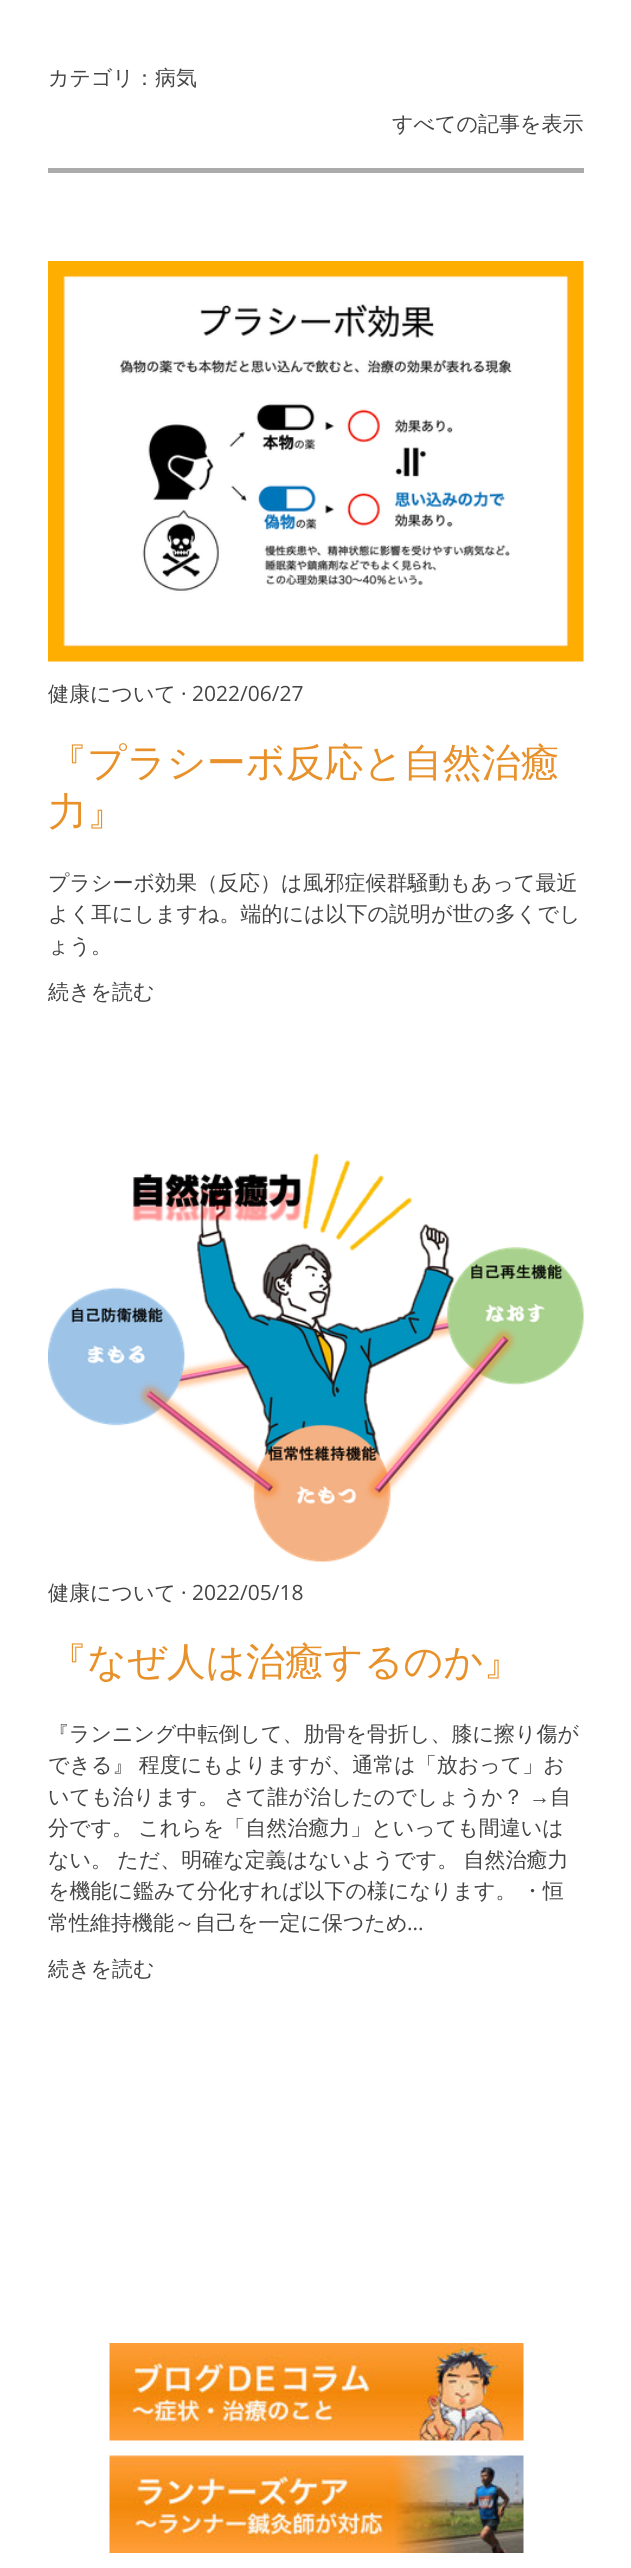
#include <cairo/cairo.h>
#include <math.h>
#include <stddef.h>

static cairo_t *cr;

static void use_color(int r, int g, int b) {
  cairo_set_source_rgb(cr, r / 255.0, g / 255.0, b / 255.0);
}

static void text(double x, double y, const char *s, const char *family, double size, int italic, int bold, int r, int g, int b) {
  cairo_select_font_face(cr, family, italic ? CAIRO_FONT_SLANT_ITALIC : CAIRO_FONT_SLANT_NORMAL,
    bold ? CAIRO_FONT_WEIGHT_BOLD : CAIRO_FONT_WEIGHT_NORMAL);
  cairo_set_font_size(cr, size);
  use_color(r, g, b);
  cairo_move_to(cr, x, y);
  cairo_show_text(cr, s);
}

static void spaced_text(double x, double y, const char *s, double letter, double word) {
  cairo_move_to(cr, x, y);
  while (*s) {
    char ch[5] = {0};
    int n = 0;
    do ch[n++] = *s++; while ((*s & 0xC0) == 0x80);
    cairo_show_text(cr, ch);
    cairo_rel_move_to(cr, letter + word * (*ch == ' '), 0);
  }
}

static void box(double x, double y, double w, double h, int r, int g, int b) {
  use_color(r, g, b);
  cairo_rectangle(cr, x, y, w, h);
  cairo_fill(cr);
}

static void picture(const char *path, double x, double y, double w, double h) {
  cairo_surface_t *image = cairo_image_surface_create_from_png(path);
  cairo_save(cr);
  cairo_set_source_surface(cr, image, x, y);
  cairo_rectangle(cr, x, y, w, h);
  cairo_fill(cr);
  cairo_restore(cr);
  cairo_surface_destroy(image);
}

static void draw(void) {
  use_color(255, 255, 255);
  cairo_paint(cr);
  box(48, 168, 536, 2, 171, 171, 171);
  box(582, 168, 2, 5, 171, 171, 171);
  box(48, 170, 536, 3, 171, 171, 171);
  picture("img_01.png", 48, 261, 536, 401);
  picture("img_02.png", 48, 1153, 536, 409);
  picture("img_03.png", 109, 2343, 415, 98);
  picture("img_04.png", 109, 2455, 415, 98);
  text(48, 85, "カテゴリ：病気", "WenQuanYi Zen Hei Medium", 21, 0, 0, 68, 68, 68);
  text(392, 131, "すべての記事を表示", "WenQuanYi Zen Hei Medium", 21, 0, 0, 68, 68, 68);
  text(48, 701, "健康について", "WenQuanYi Zen Hei Medium", 21, 0, 0, 68, 68, 68);
  text(181, 701, "·", "Open Sans", 21, 0, 0, 68, 68, 68);
  text(192, 701, "2022/06/27", "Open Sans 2", 21, 0, 0, 68, 68, 68);
  text(48, 776, "『プラシーボ反応と自然治癒", "WenQuanYi Zen Hei Medium", 39, 0, 0, 232, 145, 42);
  text(48, 825, "力』", "WenQuanYi Zen Hei Medium", 39, 0, 0, 232, 145, 42);
  text(48, 890, "プラシーボ効果（反応）は風邪症候群騒動もあって最近", "WenQuanYi Zen Hei Medium", 21, 0, 0, 68, 68, 68);
  text(48, 921, "よく耳にしますね。端的には以下の説明が世の多くでし", "WenQuanYi Zen Hei Medium", 21, 0, 0, 68, 68, 68);
  text(48, 953, "ょう。", "WenQuanYi Zen Hei Medium", 21, 0, 0, 68, 68, 68);
  text(48, 999, "続きを読む", "WenQuanYi Zen Hei Medium", 21, 0, 0, 68, 68, 68);
  text(48, 1600, "健康について", "WenQuanYi Zen Hei Medium", 21, 0, 0, 68, 68, 68);
  text(181, 1600, "·", "Open Sans", 21, 0, 0, 68, 68, 68);
  text(192, 1600, "2022/05/18", "Open Sans 2", 21, 0, 0, 68, 68, 68);
  text(48, 1675, "『なぜ人は治癒するのか』", "WenQuanYi Zen Hei Medium", 39, 0, 0, 232, 145, 42);
  text(48, 1741, "『ランニング中転倒して、肋骨を骨折し、膝に擦り傷が", "WenQuanYi Zen Hei Medium", 21, 0, 0, 68, 68, 68);
  spaced_text(48, 1772, "できる』 程度にもよりますが、通常は「放おって」お", 0, -1);
  spaced_text(48, 1804, "いても治ります。 さて誰が治したのでしょうか？", 0, -1);
  text(529, 1804, "→", "Liberation Sans", 21, 0, 0, 68, 68, 68);
  text(550, 1804, "自", "WenQuanYi Zen Hei Medium", 21, 0, 0, 68, 68, 68);
  spaced_text(48, 1835, "分です。 これらを「自然治癒力」といっても間違いは", 0, -1);
  spaced_text(48, 1867, "ない。 ただ、明確な定義はないようです。 自然治癒力", 0, -1);
  spaced_text(48, 1898, "を機能に鑑みて分化すれば以下の様になります。 ・恒", 0, -1);
  text(48, 1930, "常性維持機能～自己を一定に保つため", "WenQuanYi Zen Hei Medium", 21, 0, 0, 68, 68, 68);
  text(407, 1930, "...", "Open Sans 2", 21, 0, 0, 68, 68, 68);
  text(48, 1976, "続きを読む", "WenQuanYi Zen Hei Medium", 21, 0, 0, 68, 68, 68);
}

int main(void) {
  cairo_surface_t *surface = cairo_image_surface_create(CAIRO_FORMAT_RGB24, 631, 2568);
  cr = cairo_create(surface);
  cairo_font_options_t *options = cairo_font_options_create();
  cairo_font_options_set_hint_metrics(options, CAIRO_HINT_METRICS_OFF);
  cairo_font_options_set_hint_style(options, CAIRO_HINT_STYLE_NONE);
  cairo_set_font_options(cr, options);
  cairo_set_miter_limit(cr, 4);
  draw();
  cairo_surface_write_to_png(surface, "out.png");
  cairo_font_options_destroy(options);
  cairo_destroy(cr);
  cairo_surface_destroy(surface);
  return 0;
}
